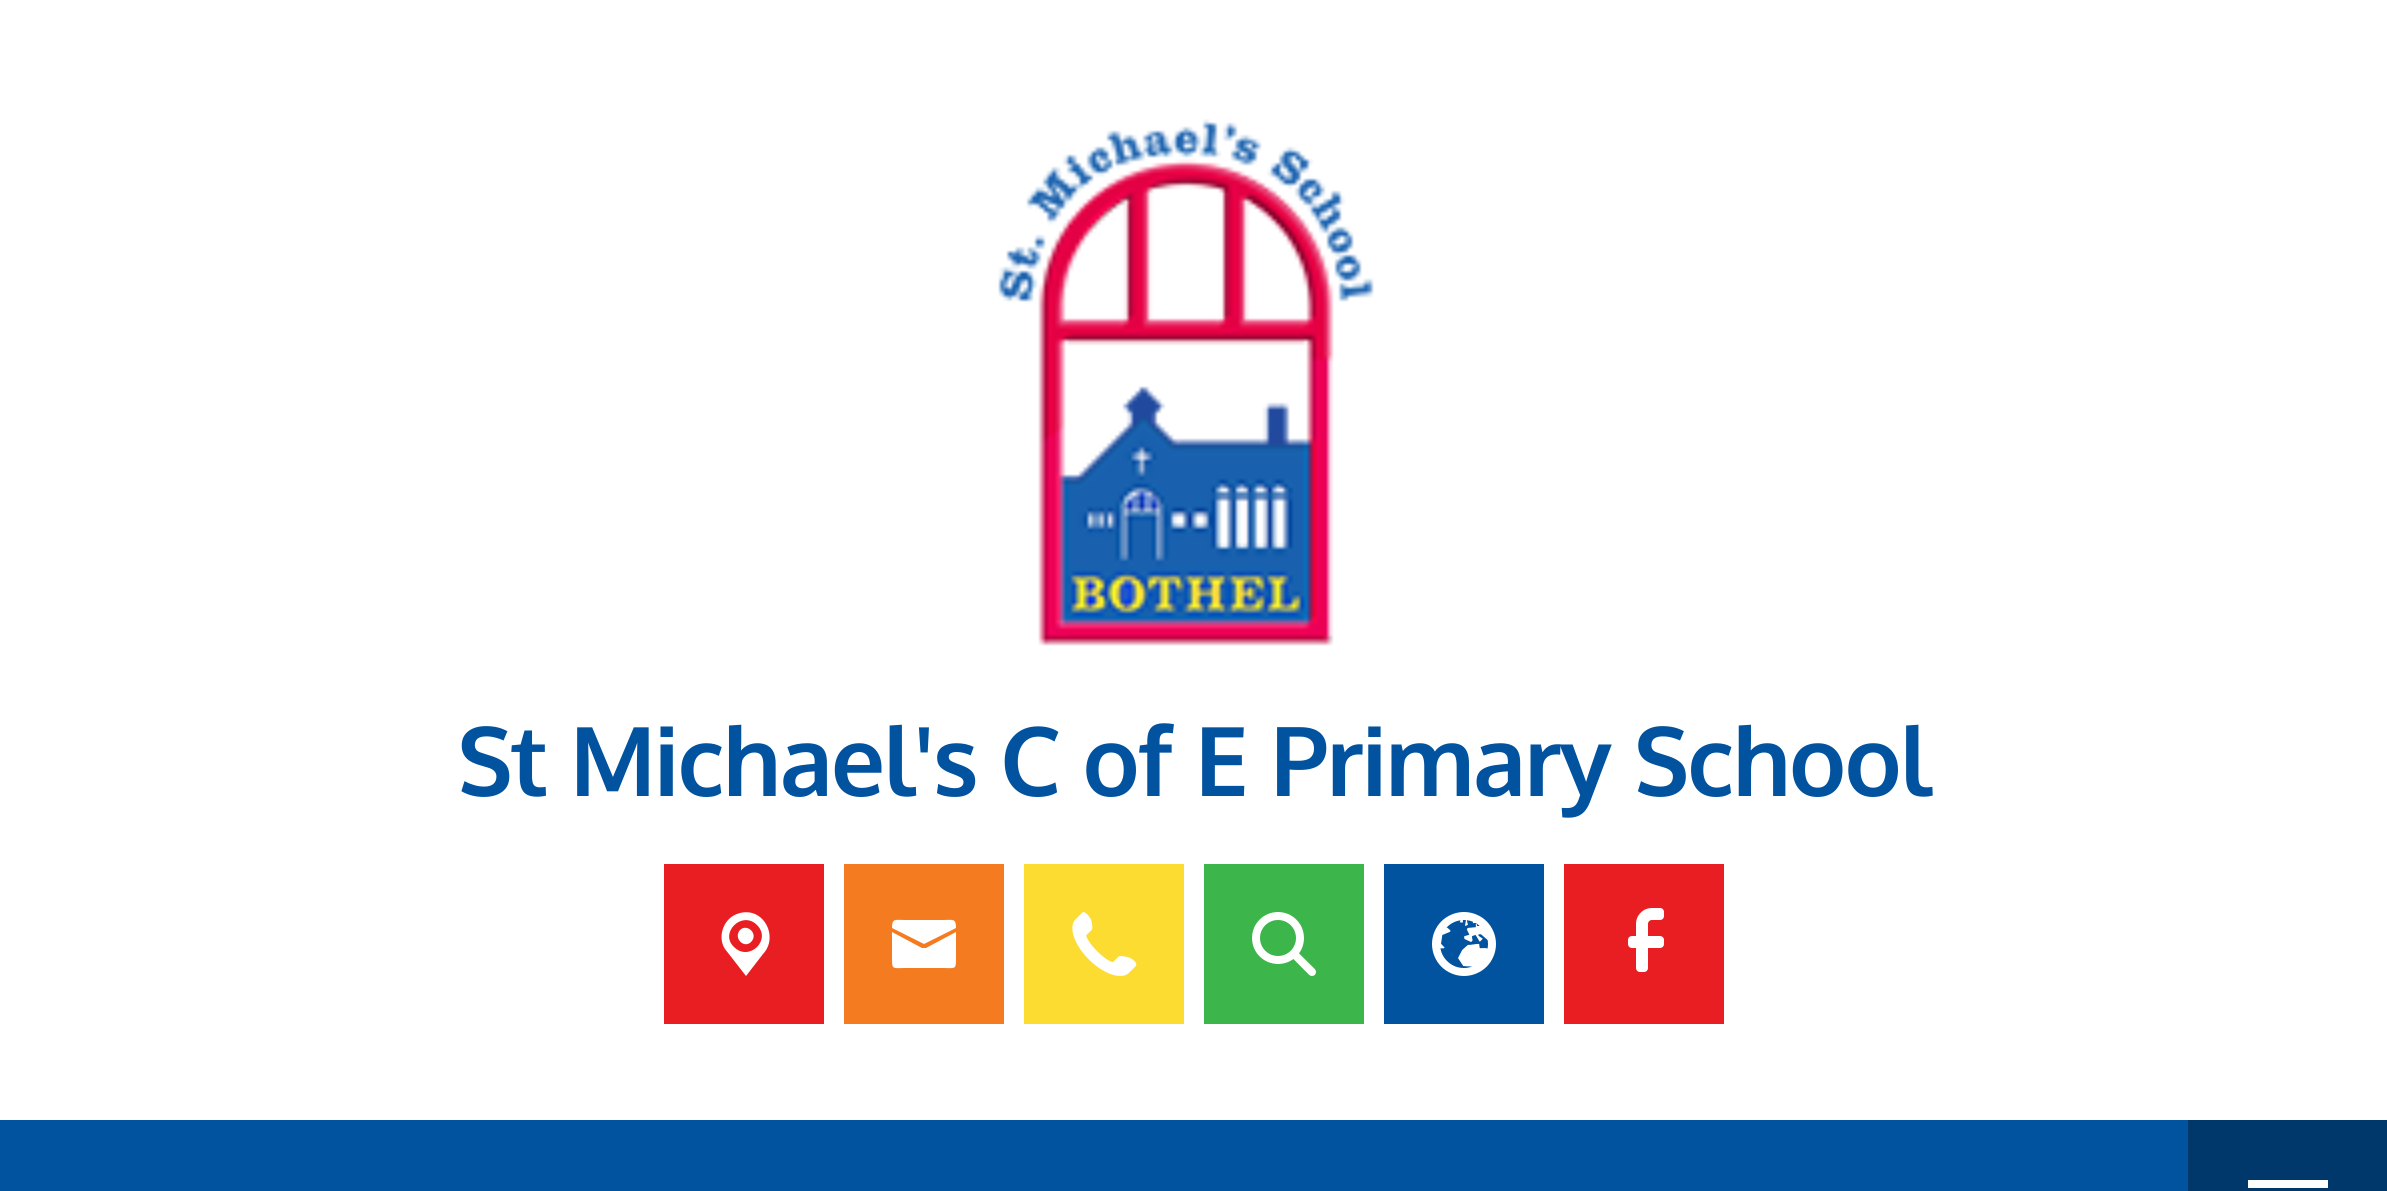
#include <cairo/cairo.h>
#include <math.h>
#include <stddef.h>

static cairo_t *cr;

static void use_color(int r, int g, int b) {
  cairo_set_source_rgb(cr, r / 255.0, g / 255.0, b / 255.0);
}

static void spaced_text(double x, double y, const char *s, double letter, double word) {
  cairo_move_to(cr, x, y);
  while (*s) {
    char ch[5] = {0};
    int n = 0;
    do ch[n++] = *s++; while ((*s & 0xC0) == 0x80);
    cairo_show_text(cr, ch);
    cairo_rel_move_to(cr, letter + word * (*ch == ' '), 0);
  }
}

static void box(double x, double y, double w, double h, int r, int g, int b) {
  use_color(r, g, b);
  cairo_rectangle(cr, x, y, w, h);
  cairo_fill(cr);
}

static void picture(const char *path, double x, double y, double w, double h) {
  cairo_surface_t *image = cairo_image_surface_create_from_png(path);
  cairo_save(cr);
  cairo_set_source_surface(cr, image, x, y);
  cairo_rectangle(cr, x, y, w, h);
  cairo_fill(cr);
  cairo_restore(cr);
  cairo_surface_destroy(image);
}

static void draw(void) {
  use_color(255, 255, 255);
  cairo_paint(cr);
  picture("img_01.png", 998, 119, 376, 527);
  box(664, 864, 160, 160, 232, 30, 34);
  use_color(255, 255, 255);
  cairo_new_path(cr);
  cairo_move_to(cr, 763, 954);
  cairo_line_to(cr, 746, 976);
  cairo_line_to(cr, 725, 949);
  cairo_curve_to(cr, 719, 940, 721, 927, 729, 919);
  cairo_curve_to(cr, 732, 916, 736, 914, 740, 913);
  cairo_curve_to(cr, 764, 907, 779, 937, 763, 954);
  cairo_close_path(cr);
  cairo_move_to(cr, 757, 925);
  cairo_curve_to(cr, 742, 910, 719, 933, 734, 947);
  cairo_curve_to(cr, 749, 962, 772, 940, 757, 925);
  cairo_close_path(cr);
  cairo_move_to(cr, 751, 942);
  cairo_curve_to(cr, 744, 949, 733, 938, 740, 930);
  cairo_curve_to(cr, 747, 923, 759, 934, 751, 942);
  cairo_close_path(cr);
  cairo_fill(cr);
  box(844, 864, 160, 160, 245, 123, 33);
  use_color(255, 255, 255);
  cairo_new_path(cr);
  cairo_move_to(cr, 924, 944);
  cairo_line_to(cr, 892, 928);
  cairo_curve_to(cr, 892, 918, 895, 920, 905, 920);
  cairo_line_to(cr, 943, 920);
  cairo_curve_to(cr, 953, 920, 956, 918, 956, 928);
  cairo_close_path(cr);
  cairo_move_to(cr, 922, 948);
  cairo_line_to(cr, 926, 948);
  cairo_line_to(cr, 956, 932);
  cairo_line_to(cr, 956, 959);
  cairo_curve_to(cr, 956, 970, 955, 968, 943, 968);
  cairo_line_to(cr, 905, 968);
  cairo_curve_to(cr, 893, 968, 892, 970, 892, 959);
  cairo_line_to(cr, 892, 932);
  cairo_close_path(cr);
  cairo_fill(cr);
  box(1024, 864, 160, 160, 253, 220, 50);
  picture("img_02.png", 1072, 912, 65, 64);
  box(1204, 864, 160, 160, 60, 181, 75);
  picture("img_03.png", 1252, 912, 64, 64);
  box(1384, 864, 160, 160, 1, 82, 159);
  picture("img_04.png", 1432, 912, 64, 64);
  box(1564, 864, 160, 160, 232, 30, 34);
  picture("img_05.png", 1628, 908, 36, 64);
  box(0, 1120, 2188, 71, 1, 82, 159);
  box(2188, 1120, 199, 71, 1, 56, 108);
  box(2248, 1180, 80, 8, 255, 255, 255);
  cairo_select_font_face(cr, "Oxygen", CAIRO_FONT_SLANT_NORMAL, CAIRO_FONT_WEIGHT_BOLD);
  cairo_set_font_size(cr, 96);
  use_color(1, 82, 159);
  spaced_text(457, 796, "St Michael's C of E Primary School", -2, 0);
}

int main(void) {
  cairo_surface_t *surface = cairo_image_surface_create(CAIRO_FORMAT_RGB24, 2387, 1191);
  cr = cairo_create(surface);
  cairo_font_options_t *options = cairo_font_options_create();
  cairo_font_options_set_hint_metrics(options, CAIRO_HINT_METRICS_OFF);
  cairo_font_options_set_hint_style(options, CAIRO_HINT_STYLE_NONE);
  cairo_set_font_options(cr, options);
  cairo_set_miter_limit(cr, 4);
  draw();
  cairo_surface_write_to_png(surface, "out.png");
  cairo_font_options_destroy(options);
  cairo_destroy(cr);
  cairo_surface_destroy(surface);
  return 0;
}
